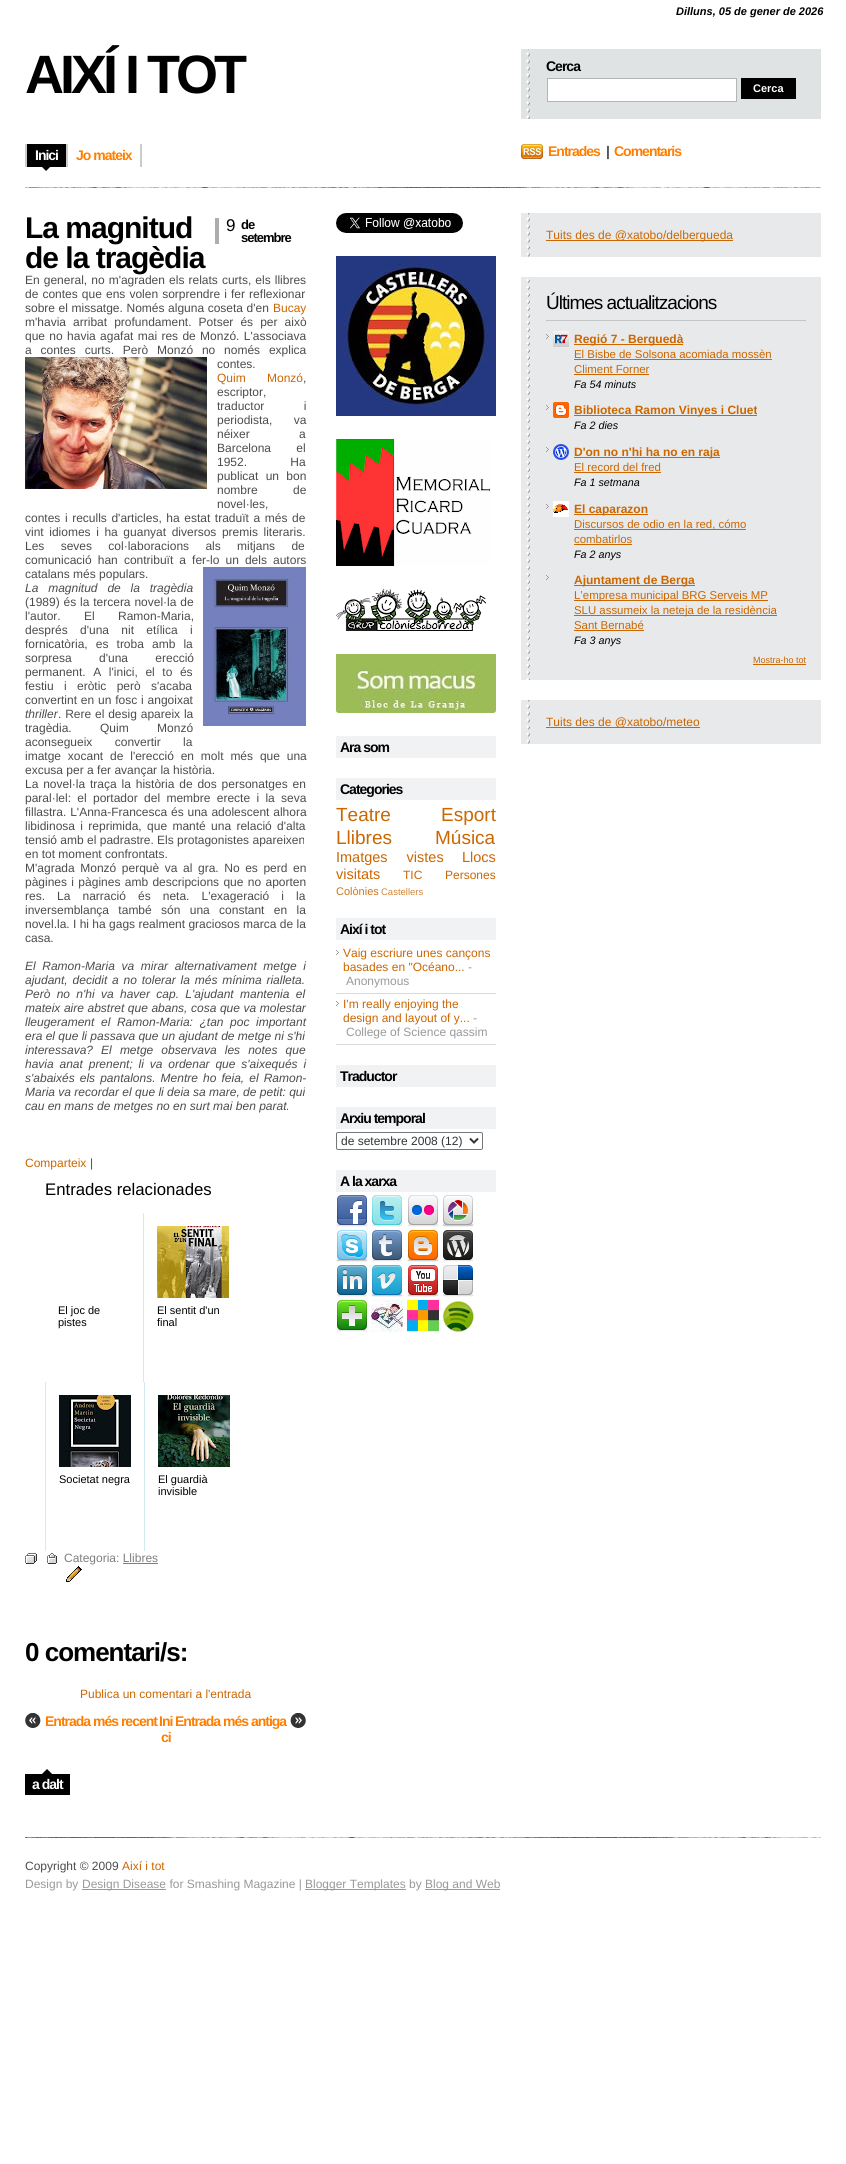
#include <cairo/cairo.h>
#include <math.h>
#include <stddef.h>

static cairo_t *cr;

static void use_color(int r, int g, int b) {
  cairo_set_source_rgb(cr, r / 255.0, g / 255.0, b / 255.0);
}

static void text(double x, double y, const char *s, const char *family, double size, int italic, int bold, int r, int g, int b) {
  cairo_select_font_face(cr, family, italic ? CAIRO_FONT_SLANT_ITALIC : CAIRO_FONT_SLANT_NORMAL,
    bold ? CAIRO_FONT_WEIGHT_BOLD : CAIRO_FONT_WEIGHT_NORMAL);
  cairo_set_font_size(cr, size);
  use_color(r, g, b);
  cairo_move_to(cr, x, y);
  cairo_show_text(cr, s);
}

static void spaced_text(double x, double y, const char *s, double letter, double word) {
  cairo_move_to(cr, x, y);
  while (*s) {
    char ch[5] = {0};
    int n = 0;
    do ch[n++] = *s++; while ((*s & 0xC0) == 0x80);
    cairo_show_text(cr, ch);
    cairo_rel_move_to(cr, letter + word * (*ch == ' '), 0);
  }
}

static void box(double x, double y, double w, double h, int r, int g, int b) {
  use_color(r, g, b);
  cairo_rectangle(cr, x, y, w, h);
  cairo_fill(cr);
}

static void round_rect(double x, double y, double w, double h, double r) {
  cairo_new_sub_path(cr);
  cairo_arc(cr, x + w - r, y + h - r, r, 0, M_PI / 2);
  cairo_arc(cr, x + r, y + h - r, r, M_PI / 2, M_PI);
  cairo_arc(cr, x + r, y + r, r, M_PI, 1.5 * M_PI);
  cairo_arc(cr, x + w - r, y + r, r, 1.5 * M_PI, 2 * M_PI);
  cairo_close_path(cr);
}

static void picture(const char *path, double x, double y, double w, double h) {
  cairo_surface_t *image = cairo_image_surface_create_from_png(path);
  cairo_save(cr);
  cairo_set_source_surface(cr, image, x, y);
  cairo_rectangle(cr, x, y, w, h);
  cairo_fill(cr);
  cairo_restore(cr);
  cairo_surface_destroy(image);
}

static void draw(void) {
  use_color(255, 255, 255);
  cairo_paint(cr);
  box(521, 49, 300, 70, 224, 227, 228);
  picture("img_01.png", 526, 49, 4, 70);
  use_color(255, 255, 255);
  cairo_rectangle(cr, 547.5, 78.5, 189, 23);
  cairo_fill_preserve(cr);
  use_color(179, 182, 183);
  cairo_set_line_width(cr, 1);
  cairo_stroke(cr);
  box(741, 78, 55, 21, 0, 0, 0);
  box(25, 144, 2, 23, 204, 204, 204);
  box(66, 144, 2, 23, 204, 204, 204);
  box(27, 144, 39, 27, 0, 0, 0);
  picture("img_02.png", 27, 167, 39, 5);
  box(140, 144, 2, 23, 204, 204, 204);
  picture("img_03.png", 521, 144, 22, 15);
  picture("img_04.png", 25, 187, 796, 1);
  box(215, 218, 4, 26, 173, 173, 173);
  picture("img_05.png", 25, 357, 182, 132);
  picture("img_06.png", 203, 567, 103, 159);
  box(143, 1213, 1, 169, 212, 234, 242);
  picture("img_07.png", 157, 1226, 72, 72);
  box(45, 1382, 1, 169, 212, 234, 242);
  picture("img_08.png", 59, 1395, 72, 72);
  box(144, 1382, 1, 169, 212, 234, 242);
  picture("img_09.png", 158, 1395, 72, 72);
  picture("img_10.png", 25, 1553, 12, 11);
  picture("img_11.png", 47, 1553, 10, 11);
  box(123, 1563, 35, 1, 127, 127, 127);
  picture("img_12.png", 66, 1566, 16, 16);
  picture("img_13.png", 25, 1713, 16, 15);
  picture("img_14.png", 290, 1713, 16, 15);
  box(25, 1769, 45, 26, 0, 0, 0);
  picture("img_15.png", 25, 1769, 45, 5);
  box(521, 213, 300, 44, 231, 233, 234);
  picture("img_16.png", 526, 213, 4, 44);
  box(546, 240, 187, 1, 204, 102, 0);
  box(521, 277, 300, 403, 231, 233, 234);
  picture("img_17.png", 526, 278, 4, 402);
  box(546, 320, 260, 1, 195, 196, 197);
  picture("img_18.png", 546, 334, 3, 5);
  picture("img_19.png", 553, 331, 16, 16);
  box(574, 344, 109, 1, 204, 102, 0);
  box(574, 359, 198, 1, 204, 102, 0);
  box(574, 374, 75, 1, 204, 102, 0);
  picture("img_18.png", 546, 405, 3, 5);
  picture("img_20.png", 553, 402, 16, 16);
  box(574, 415, 183, 1, 204, 102, 0);
  picture("img_18.png", 546, 447, 3, 5);
  picture("img_21.png", 553, 444, 16, 16);
  box(574, 457, 146, 1, 204, 102, 0);
  box(574, 472, 87, 1, 204, 102, 0);
  picture("img_18.png", 546, 504, 3, 5);
  picture("img_22.png", 553, 501, 16, 16);
  box(574, 514, 74, 1, 204, 102, 0);
  box(574, 529, 172, 1, 204, 102, 0);
  box(574, 544, 58, 1, 204, 102, 0);
  picture("img_18.png", 546, 575, 3, 5);
  box(574, 585, 121, 1, 204, 102, 0);
  box(574, 600, 194, 1, 204, 102, 0);
  box(574, 615, 203, 1, 204, 102, 0);
  box(574, 630, 70, 1, 204, 102, 0);
  box(753, 664, 53, 1, 204, 102, 0);
  box(521, 700, 300, 44, 231, 233, 234);
  picture("img_16.png", 526, 700, 4, 44);
  box(546, 727, 154, 1, 204, 102, 0);
  picture("img_23.png", 336, 213, 127, 20);
  picture("img_24.png", 336, 256, 160, 160);
  picture("img_25.png", 336, 439, 155, 127);
  picture("img_26.png", 336, 589, 150, 42);
  picture("img_27.png", 336, 654, 160, 59);
  box(336, 736, 160, 22, 240, 242, 243);
  box(336, 778, 160, 22, 240, 242, 243);
  box(336, 918, 160, 22, 240, 242, 243);
  picture("img_28.png", 336, 950, 3, 5);
  box(336, 993, 160, 1, 218, 218, 218);
  picture("img_28.png", 336, 1001, 3, 5);
  box(336, 1044, 160, 1, 218, 218, 218);
  box(336, 1065, 160, 22, 240, 242, 243);
  box(336, 1107, 160, 22, 240, 242, 243);
  round_rect(336.5, 1132.5, 146, 17, 1.5);
  use_color(118, 118, 118);
  cairo_stroke(cr);
  cairo_new_path(cr);
  cairo_move_to(cr, 470, 1138.5);
  cairo_line_to(cr, 474, 1142.5);
  cairo_line_to(cr, 478, 1138.5);
  use_color(45, 53, 56);
  cairo_set_line_width(cr, 2);
  cairo_stroke(cr);
  box(336, 1170, 160, 22, 240, 242, 243);
  picture("img_29.png", 336, 1195, 32, 32);
  picture("img_30.png", 372, 1195, 30, 32);
  picture("img_31.png", 408, 1195, 31, 32);
  picture("img_32.png", 442, 1195, 32, 32);
  picture("img_33.png", 336, 1230, 32, 32);
  picture("img_34.png", 372, 1230, 30, 32);
  picture("img_35.png", 407, 1230, 32, 32);
  picture("img_36.png", 443, 1230, 30, 32);
  picture("img_37.png", 337, 1265, 30, 32);
  picture("img_38.png", 371, 1265, 32, 32);
  picture("img_39.png", 407, 1265, 32, 32);
  picture("img_40.png", 442, 1265, 32, 32);
  picture("img_41.png", 337, 1300, 30, 32);
  picture("img_42.png", 371, 1300, 32, 32);
  picture("img_43.png", 407, 1300, 32, 32);
  picture("img_44.png", 442, 1300, 32, 32);
  picture("img_45.png", 25, 1837, 796, 1);
  box(82, 1889, 84, 1, 153, 153, 153);
  box(305, 1889, 101, 1, 153, 153, 153);
  box(425, 1889, 75, 1, 153, 153, 153);
  text(676, 15, "Dilluns, 05 de gener de 2026", "Liberation Sans", 11, 1, 1, 0, 0, 0);
  cairo_select_font_face(cr, "Liberation Sans", CAIRO_FONT_SLANT_NORMAL, CAIRO_FONT_WEIGHT_BOLD);
  cairo_set_font_size(cr, 54);
  spaced_text(25, 93, "AIXÍ I TOT", -4, 0);
  cairo_set_font_size(cr, 14);
  spaced_text(546, 71, "Cerca", -1, 0);
  text(753, 92, "Cerca", "Liberation Sans", 11, 0, 1, 255, 255, 255);
  cairo_set_font_size(cr, 14);
  spaced_text(35, 160, "Inici", -1, 0);
  use_color(255, 126, 0);
  spaced_text(76, 160, "Jo mateix", -1, 0);
  spaced_text(548, 156, "Entrades", -1, 0);
  use_color(76, 76, 76);
  spaced_text(606, 156, "|", -1, 0);
  use_color(255, 126, 0);
  spaced_text(614, 156, "Comentaris", -1, 0);
  cairo_set_font_size(cr, 30);
  use_color(0, 0, 0);
  spaced_text(25, 238, "La magnitud", -1, 0);
  spaced_text(25, 268, "de la tragèdia", -1, 0);
  cairo_select_font_face(cr, "Liberation Sans", CAIRO_FONT_SLANT_NORMAL, CAIRO_FONT_WEIGHT_NORMAL);
  cairo_set_font_size(cr, 17);
  spaced_text(226, 231, "9", -1, 0);
  cairo_select_font_face(cr, "Liberation Sans", CAIRO_FONT_SLANT_NORMAL, CAIRO_FONT_WEIGHT_BOLD);
  cairo_set_font_size(cr, 13);
  spaced_text(241, 229, "de", -1, 0);
  spaced_text(241, 242, "setembre", -1, 0);
  cairo_select_font_face(cr, "Liberation Sans", CAIRO_FONT_SLANT_NORMAL, CAIRO_FONT_WEIGHT_NORMAL);
  cairo_set_font_size(cr, 12);
  use_color(76, 76, 76);
  spaced_text(25, 284, "En general, no m'agraden els relats curts, els llibres", 0, 0.75);
  spaced_text(25, 298, "de contes que ens volen sorprendre i fer reflexionar", 0, 0.75);
  spaced_text(25, 312, "sobre el missatge. Només alguna coseta d'en", 0, 0.25);
  text(273, 312, "Bucay", "Liberation Sans", 12, 0, 0, 204, 102, 0);
  use_color(76, 76, 76);
  spaced_text(25, 326, "m'havia arribat profundament. Potser és per això", 0, 3.75);
  spaced_text(25, 340, "que no havia agafat mai res de Monzó. L'associava", 0, 1);
  spaced_text(25, 354, "a contes curts. Però Monzó no només explica", 0, 5.5);
  text(217, 368, "contes.", "Liberation Sans", 12, 0, 0, 76, 76, 76);
  use_color(204, 102, 0);
  spaced_text(217, 382, "Quim Monzó", 0, 18);
  text(303, 382, ",", "Liberation Sans", 12, 0, 0, 76, 76, 76);
  text(217, 396, "escriptor,", "Liberation Sans", 12, 0, 0, 76, 76, 76);
  spaced_text(217, 410, "traductor i", 0, 36);
  spaced_text(217, 424, "periodista, va", 0, 18);
  spaced_text(217, 438, "néixer a", 0, 46);
  spaced_text(217, 452, "Barcelona el", 0, 22);
  spaced_text(217, 466, "1952. Ha", 0, 40);
  spaced_text(217, 480, "publicat un bon", 0, 4);
  spaced_text(217, 494, "nombre de", 0, 32);
  text(217, 508, "novel·les,", "Liberation Sans", 12, 0, 0, 76, 76, 76);
  spaced_text(25, 522, "contes i reculls d'articles, ha estat traduït a més de", 0, 1.25);
  spaced_text(25, 536, "vint idiomes i ha guanyat diversos premis literaris.", 0, 2.25);
  spaced_text(25, 550, "Les seves col·laboracions als mitjans de", 0, 13);
  spaced_text(25, 564, "comunicació han contribuït a fer-lo un dels autors", 0, 2.75);
  text(25, 578, "catalans més populars.", "Liberation Sans", 12, 0, 0, 76, 76, 76);
  cairo_select_font_face(cr, "Liberation Sans", CAIRO_FONT_SLANT_ITALIC, CAIRO_FONT_WEIGHT_NORMAL);
  spaced_text(25, 592, "La magnitud de la tragèdia", 0, 6.5);
  cairo_select_font_face(cr, "Liberation Sans", CAIRO_FONT_SLANT_NORMAL, CAIRO_FONT_WEIGHT_NORMAL);
  spaced_text(25, 606, "(1989) és la tercera novel·la de", 0, 0.5);
  spaced_text(25, 620, "l'autor. El Ramon-Maria,", 0, 20);
  spaced_text(25, 634, "després d'una nit etílica i", 0, 9);
  spaced_text(25, 648, "fornicatòria, es troba amb la", 0, 4.75);
  spaced_text(25, 662, "sorpresa d'una erecció", 0, 24);
  spaced_text(25, 676, "permanent. A l'inici, el to és", 0, 4.25);
  spaced_text(25, 690, "festiu i eròtic però s'acaba", 0, 7);
  spaced_text(25, 704, "convertint en un fosc i angoixat", 0, 0.5);
  text(25, 718, "thriller", "Liberation Sans", 12, 1, 0, 76, 76, 76);
  cairo_select_font_face(cr, "Liberation Sans", CAIRO_FONT_SLANT_NORMAL, CAIRO_FONT_WEIGHT_NORMAL);
  spaced_text(58, 718, ". Rere el desig apareix la", 0, 0.5);
  spaced_text(25, 732, "tragèdia. Quim Monzó", 0, 25);
  spaced_text(25, 746, "aconsegueix convertir la", 0, 19);
  spaced_text(25, 760, "imatge xocant de l'erecció en molt més que una", 0, 3.5);
  text(25, 774, "excusa per a fer avançar la història.", "Liberation Sans", 12, 0, 0, 76, 76, 76);
  spaced_text(25, 788, "La novel·la traça la història de dos personatges en", 0, 1.5);
  spaced_text(25, 802, "paral·lel: el portador del membre erecte i la seva", 0, 3);
  spaced_text(25, 816, "fillastra. L'Anna-Francesca és una adolescent alhora", 0, 0.5);
  spaced_text(25, 830, "libidinosa i reprimida, que manté una relació d'alta", 0, 2);
  text(25, 844, "tensió amb el padrastre. Els protagonistes apareixen", "Liberation Sans", 12, 0, 0, 76, 76, 76);
  text(25, 858, "en tot moment confrontats.", "Liberation Sans", 12, 0, 0, 76, 76, 76);
  spaced_text(25, 872, "M'agrada Monzó perquè va al gra. No es perd en", 0, 2.25);
  spaced_text(25, 886, "pàgines i pàgines amb descripcions que no aporten", 0, 1);
  spaced_text(25, 900, "res. La narració és neta. L'exageració i la", 0, 8.75);
  spaced_text(25, 914, "inversemblança també són una constant en la", 0, 6);
  text(25, 928, "novel.la. I hi ha gags realment graciosos marca de la", "Liberation Sans", 12, 0, 0, 76, 76, 76);
  text(25, 942, "casa.", "Liberation Sans", 12, 0, 0, 76, 76, 76);
  cairo_select_font_face(cr, "Liberation Sans", CAIRO_FONT_SLANT_ITALIC, CAIRO_FONT_WEIGHT_NORMAL);
  spaced_text(25, 970, "El Ramon-Maria va mirar alternativament metge i", 0, 3.25);
  spaced_text(25, 984, "ajudant, decidit a no tolerar la més mínima rialleta.", 0, 1.5);
  spaced_text(25, 998, "Però no n'hi va haver cap. L'ajudant mantenia el", 0, 3);
  spaced_text(25, 1012, "mateix aire abstret que abans, cosa que va molestar", 0, 0.25);
  spaced_text(25, 1026, "lleugerament el Ramon-Maria: ¿tan poc important", 0, 3.25);
  text(25, 1040, "era el que li passava que un ajudant de metge ni s'hi", "Liberation Sans", 12, 1, 0, 76, 76, 76);
  spaced_text(25, 1054, "interessava? El metge observava les notes que", 0, 4.75);
  spaced_text(25, 1068, "havia anat prenent; li va ordenar que s'aixequés i", 0, 2.5);
  spaced_text(25, 1082, "s'abaixés els pantalons. Mentre ho feia, el Ramon-", 0, 1.75);
  text(25, 1096, "Maria va recordar el que li deia sa mare, de petit: qui", "Liberation Sans", 12, 1, 0, 76, 76, 76);
  text(25, 1110, "cau en mans de metges no en surt mai ben parat.", "Liberation Sans", 12, 1, 0, 76, 76, 76);
  text(25, 1167, "Comparteix", "Liberation Sans", 12, 0, 0, 204, 102, 0);
  text(90, 1167, "|", "Liberation Sans", 12, 0, 0, 76, 76, 76);
  text(45, 1195, "Entrades relacionades", "Liberation Sans", 16.75, 0, 0, 0, 0, 0);
  text(58, 1314, "El joc de", "Liberation Sans", 11, 0, 0, 0, 0, 0);
  text(58, 1326, "pistes", "Liberation Sans", 11, 0, 0, 0, 0, 0);
  text(157, 1314, "El sentit d'un", "Liberation Sans", 11, 0, 0, 0, 0, 0);
  text(157, 1326, "final", "Liberation Sans", 11, 0, 0, 0, 0, 0);
  text(59, 1483, "Societat negra", "Liberation Sans", 11, 0, 0, 0, 0, 0);
  text(158, 1483, "El guardià", "Liberation Sans", 11, 0, 0, 0, 0, 0);
  text(158, 1495, "invisible", "Liberation Sans", 11, 0, 0, 0, 0, 0);
  text(64, 1562, "Categoria: Llibres", "Liberation Sans", 12, 0, 0, 127, 127, 127);
  cairo_select_font_face(cr, "Liberation Sans", CAIRO_FONT_SLANT_NORMAL, CAIRO_FONT_WEIGHT_BOLD);
  cairo_set_font_size(cr, 26);
  use_color(0, 0, 0);
  spaced_text(25, 1661, "0 comentari/s:", -1, 0);
  text(80, 1698, "Publica un comentari a l'entrada", "Liberation Sans", 12, 0, 0, 204, 102, 0);
  cairo_select_font_face(cr, "Liberation Sans", CAIRO_FONT_SLANT_NORMAL, CAIRO_FONT_WEIGHT_BOLD);
  cairo_set_font_size(cr, 14);
  use_color(255, 126, 0);
  spaced_text(45, 1726, "Entrada més recent", -1, 0);
  spaced_text(159, 1726, "Ini", -1, 0);
  spaced_text(175, 1726, "Entrada més antiga", -1, 0);
  spaced_text(161, 1742, "ci", -1, 0);
  use_color(255, 255, 255);
  spaced_text(32, 1789, "a dalt", -1, 0);
  text(546, 239, "Tuits des de @xatobo/delbergueda", "Liberation Sans", 12, 0, 0, 204, 102, 0);
  cairo_set_font_size(cr, 19);
  use_color(0, 0, 0);
  spaced_text(546, 309, "Últimes actualitzacions", -1, 0);
  text(574, 343, "Regió 7 - Berguedà", "Liberation Sans", 12, 0, 1, 204, 102, 0);
  text(574, 358, "El Bisbe de Solsona acomiada mossèn", "Liberation Sans", 11.4, 0, 0, 204, 102, 0);
  text(574, 373, "Climent Forner", "Liberation Sans", 11.4, 0, 0, 204, 102, 0);
  text(574, 388, "Fa 54 minuts", "Liberation Sans", 10.75, 1, 0, 0, 0, 0);
  text(574, 414, "Biblioteca Ramon Vinyes i Cluet", "Liberation Sans", 12, 0, 1, 204, 102, 0);
  text(574, 429, "Fa 2 dies", "Liberation Sans", 10.75, 1, 0, 0, 0, 0);
  text(574, 456, "D'on no n'hi ha no en raja", "Liberation Sans", 12, 0, 1, 204, 102, 0);
  text(574, 471, "El record del fred", "Liberation Sans", 11.4, 0, 0, 204, 102, 0);
  text(574, 486, "Fa 1 setmana", "Liberation Sans", 10.75, 1, 0, 0, 0, 0);
  text(574, 513, "El caparazon", "Liberation Sans", 12, 0, 1, 204, 102, 0);
  text(574, 528, "Discursos de odio en la red, cómo", "Liberation Sans", 11.4, 0, 0, 204, 102, 0);
  text(574, 543, "combatirlos", "Liberation Sans", 11.4, 0, 0, 204, 102, 0);
  text(574, 558, "Fa 2 anys", "Liberation Sans", 10.75, 1, 0, 0, 0, 0);
  text(574, 584, "Ajuntament de Berga", "Liberation Sans", 12, 0, 1, 204, 102, 0);
  text(574, 599, "L’empresa municipal BRG Serveis MP", "Liberation Sans", 11.4, 0, 0, 204, 102, 0);
  text(574, 614, "SLU assumeix la neteja de la residència", "Liberation Sans", 11.4, 0, 0, 204, 102, 0);
  text(574, 629, "Sant Bernabé", "Liberation Sans", 11.4, 0, 0, 204, 102, 0);
  text(574, 644, "Fa 3 anys", "Liberation Sans", 10.75, 1, 0, 0, 0, 0);
  text(753, 663, "Mostra-ho tot", "Liberation Sans", 9, 0, 0, 204, 102, 0);
  text(546, 726, "Tuits des de @xatobo/meteo", "Liberation Sans", 12, 0, 0, 204, 102, 0);
  cairo_select_font_face(cr, "Liberation Sans", CAIRO_FONT_SLANT_NORMAL, CAIRO_FONT_WEIGHT_BOLD);
  cairo_set_font_size(cr, 14);
  use_color(0, 0, 0);
  spaced_text(340, 752, "Ara som", -1, 0);
  spaced_text(340, 794, "Categories", -1, 0);
  text(336, 821, "Teatre", "Liberation Sans", 19, 0, 0, 204, 102, 0);
  text(441, 821, "Esport", "Liberation Sans", 19, 0, 0, 204, 102, 0);
  text(336, 844, "Llibres", "Liberation Sans", 19, 0, 0, 204, 102, 0);
  text(435, 844, "Música", "Liberation Sans", 19, 0, 0, 204, 102, 0);
  cairo_set_font_size(cr, 14.5);
  spaced_text(336, 862, "Imatges vistes", 0, 15);
  text(462, 862, "Llocs", "Liberation Sans", 14.5, 0, 0, 204, 102, 0);
  text(336, 879, "visitats", "Liberation Sans", 14.5, 0, 0, 204, 102, 0);
  text(403, 879, "TIC", "Liberation Sans", 12, 0, 0, 204, 102, 0);
  text(445, 879, "Persones", "Liberation Sans", 12, 0, 0, 204, 102, 0);
  text(336, 895, "Colònies", "Liberation Sans", 11, 0, 0, 209, 117, 26);
  text(381, 895, "Castellers", "Liberation Sans", 9.5, 0, 0, 214, 133, 51);
  cairo_select_font_face(cr, "Liberation Sans", CAIRO_FONT_SLANT_NORMAL, CAIRO_FONT_WEIGHT_BOLD);
  cairo_set_font_size(cr, 14);
  use_color(0, 0, 0);
  spaced_text(340, 934, "Així i tot", -1, 0);
  text(343, 957, "Vaig escriure unes cançons", "Liberation Sans", 12, 0, 0, 204, 102, 0);
  text(343, 971, "basades en \"Océano...", "Liberation Sans", 12, 0, 0, 204, 102, 0);
  text(468, 971, "-", "Liberation Sans", 12, 0, 0, 153, 153, 153);
  text(346, 985, "Anonymous", "Liberation Sans", 12, 0, 0, 153, 153, 153);
  text(343, 1008, "I'm really enjoying the", "Liberation Sans", 12, 0, 0, 204, 102, 0);
  text(343, 1022, "design and layout of y...", "Liberation Sans", 12, 0, 0, 204, 102, 0);
  text(473, 1022, "-", "Liberation Sans", 12, 0, 0, 153, 153, 153);
  text(346, 1036, "College of Science qassim", "Liberation Sans", 12, 0, 0, 153, 153, 153);
  cairo_select_font_face(cr, "Liberation Sans", CAIRO_FONT_SLANT_NORMAL, CAIRO_FONT_WEIGHT_BOLD);
  cairo_set_font_size(cr, 14);
  use_color(0, 0, 0);
  spaced_text(340, 1081, "Traductor", -1, 0);
  spaced_text(340, 1123, "Arxiu temporal", -1, 0);
  text(341, 1145, "de setembre 2008 (12)", "Liberation Sans", 12, 0, 0, 45, 53, 56);
  cairo_select_font_face(cr, "Liberation Sans", CAIRO_FONT_SLANT_NORMAL, CAIRO_FONT_WEIGHT_BOLD);
  cairo_set_font_size(cr, 14);
  use_color(0, 0, 0);
  spaced_text(340, 1186, "A la xarxa", -1, 0);
  text(25, 1870, "Copyright © 2009", "Liberation Sans", 12, 0, 0, 76, 76, 76);
  text(122, 1870, "Així i tot", "Liberation Sans", 12, 0, 0, 204, 102, 0);
  text(25, 1888, "Design by", "Liberation Sans", 12, 0, 0, 153, 153, 153);
  text(82, 1888, "Design Disease for Smashing Magazine |", "Liberation Sans", 12, 0, 0, 153, 153, 153);
  text(305, 1888, "Blogger Templates by", "Liberation Sans", 12, 0, 0, 153, 153, 153);
  text(425, 1888, "Blog and Web", "Liberation Sans", 12, 0, 0, 153, 153, 153);
}

int main(void) {
  cairo_surface_t *surface = cairo_image_surface_create(CAIRO_FORMAT_RGB24, 846, 2164);
  cr = cairo_create(surface);
  cairo_font_options_t *options = cairo_font_options_create();
  cairo_font_options_set_hint_metrics(options, CAIRO_HINT_METRICS_OFF);
  cairo_font_options_set_hint_style(options, CAIRO_HINT_STYLE_NONE);
  cairo_set_font_options(cr, options);
  cairo_set_miter_limit(cr, 4);
  draw();
  cairo_surface_write_to_png(surface, "out.png");
  cairo_font_options_destroy(options);
  cairo_destroy(cr);
  cairo_surface_destroy(surface);
  return 0;
}
